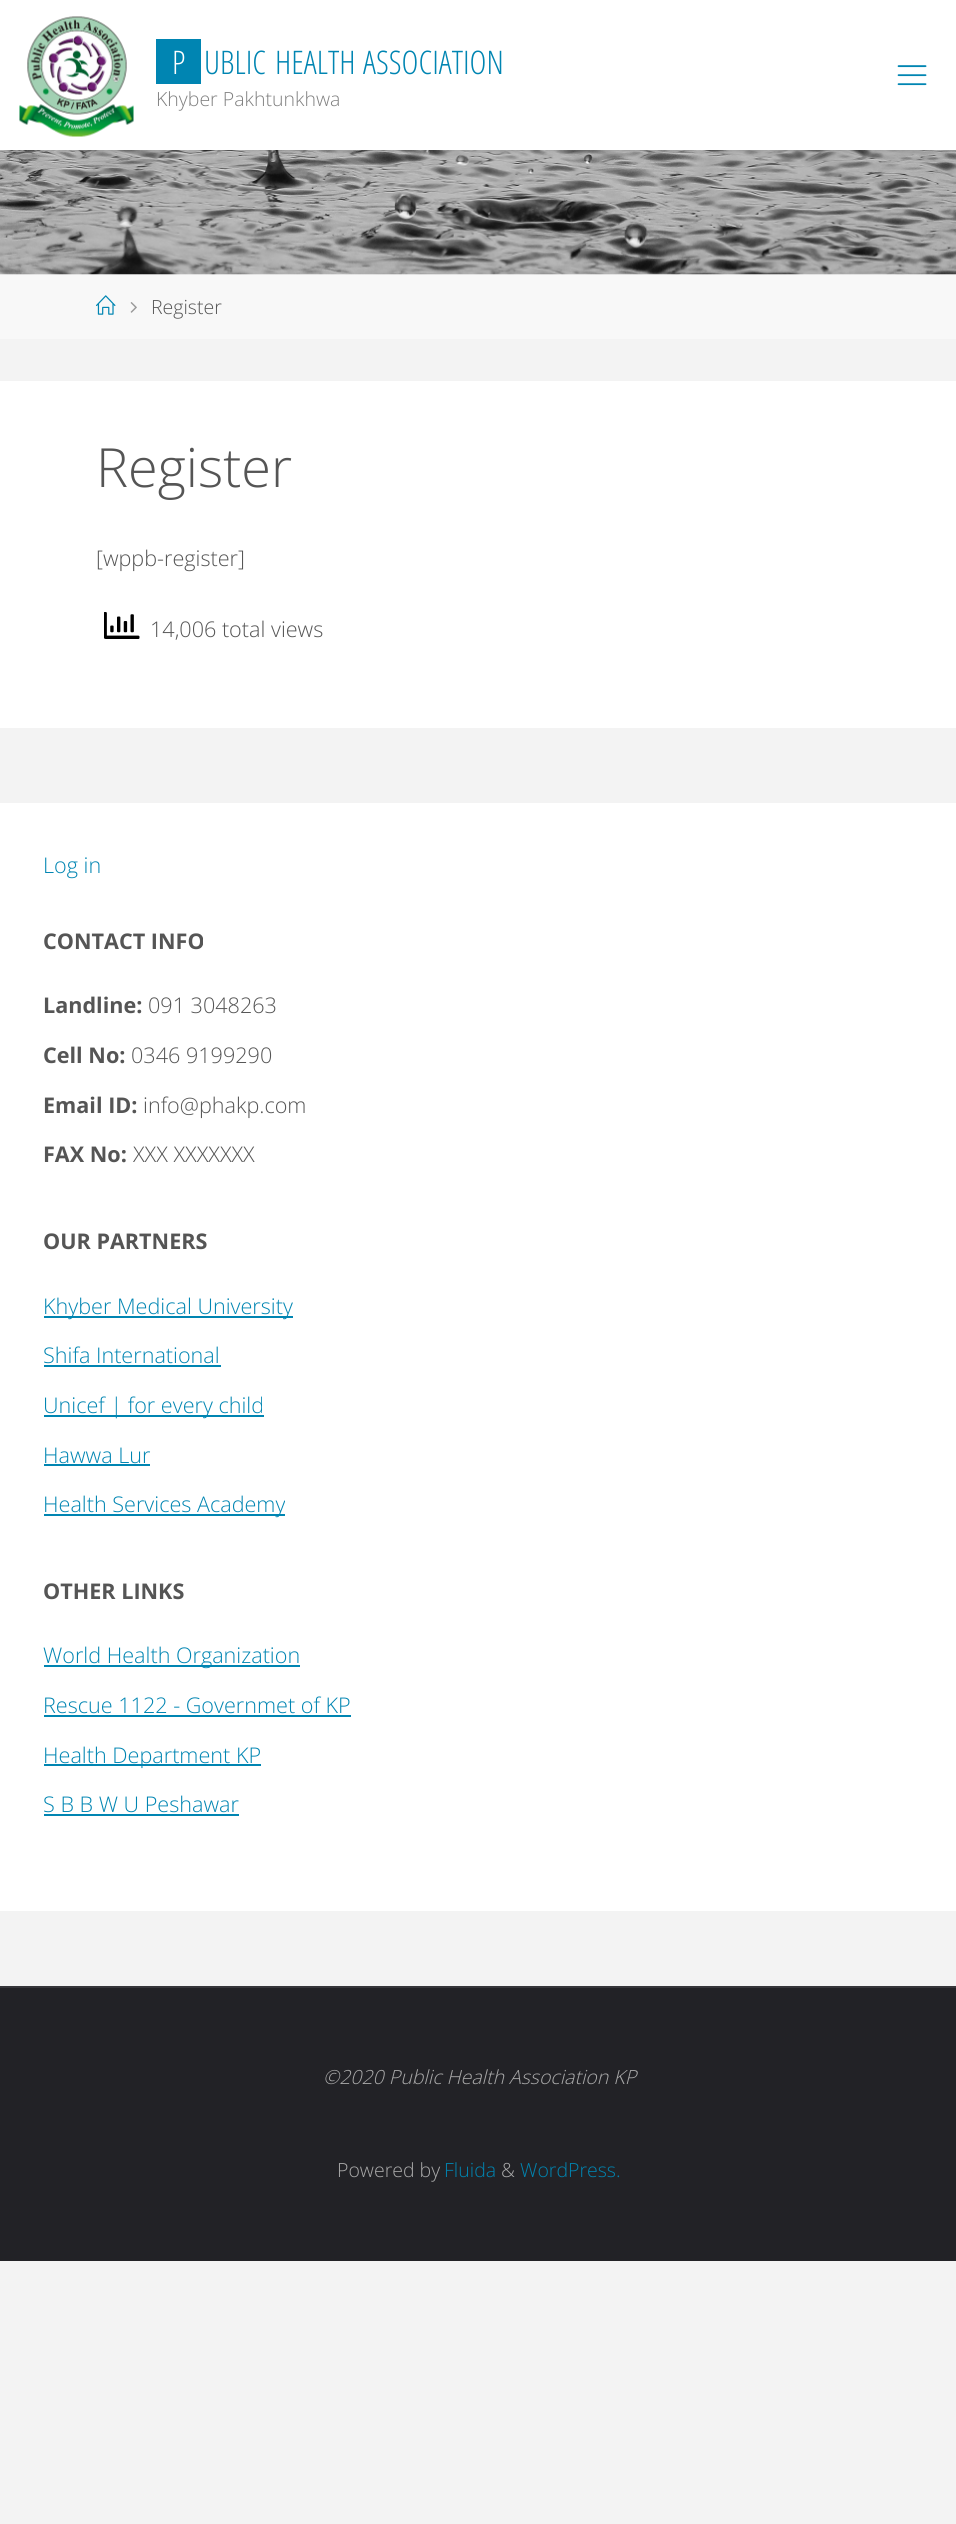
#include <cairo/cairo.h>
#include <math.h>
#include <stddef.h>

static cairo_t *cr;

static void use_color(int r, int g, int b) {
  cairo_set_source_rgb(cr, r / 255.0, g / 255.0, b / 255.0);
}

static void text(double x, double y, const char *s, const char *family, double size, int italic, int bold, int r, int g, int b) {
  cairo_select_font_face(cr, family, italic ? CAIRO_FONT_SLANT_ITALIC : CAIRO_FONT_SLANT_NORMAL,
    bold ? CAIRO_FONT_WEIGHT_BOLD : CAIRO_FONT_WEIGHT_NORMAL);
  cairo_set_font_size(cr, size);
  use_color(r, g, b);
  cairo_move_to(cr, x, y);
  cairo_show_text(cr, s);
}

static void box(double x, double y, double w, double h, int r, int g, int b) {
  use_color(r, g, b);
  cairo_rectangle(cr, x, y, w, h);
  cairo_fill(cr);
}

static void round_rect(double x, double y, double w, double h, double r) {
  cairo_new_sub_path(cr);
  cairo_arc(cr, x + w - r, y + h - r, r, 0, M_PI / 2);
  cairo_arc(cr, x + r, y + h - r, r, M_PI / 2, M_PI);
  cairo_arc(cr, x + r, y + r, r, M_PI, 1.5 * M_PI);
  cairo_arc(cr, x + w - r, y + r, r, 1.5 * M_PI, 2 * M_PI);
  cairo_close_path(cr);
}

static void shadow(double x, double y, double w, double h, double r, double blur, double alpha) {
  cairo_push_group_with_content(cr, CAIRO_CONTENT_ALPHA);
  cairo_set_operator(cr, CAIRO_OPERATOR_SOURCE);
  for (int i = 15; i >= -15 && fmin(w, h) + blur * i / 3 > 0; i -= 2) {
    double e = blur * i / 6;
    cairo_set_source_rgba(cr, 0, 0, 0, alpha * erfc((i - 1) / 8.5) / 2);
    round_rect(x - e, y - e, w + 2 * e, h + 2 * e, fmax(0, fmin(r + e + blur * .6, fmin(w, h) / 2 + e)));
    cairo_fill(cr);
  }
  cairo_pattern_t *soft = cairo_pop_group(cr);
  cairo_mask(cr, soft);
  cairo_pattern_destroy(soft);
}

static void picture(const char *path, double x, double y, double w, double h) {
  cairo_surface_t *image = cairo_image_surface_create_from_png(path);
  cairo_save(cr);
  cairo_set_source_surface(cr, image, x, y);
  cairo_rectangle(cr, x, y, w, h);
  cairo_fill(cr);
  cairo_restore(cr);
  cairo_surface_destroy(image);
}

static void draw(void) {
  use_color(243, 243, 243);
  cairo_paint(cr);
  picture("img_03.png", 0, 150, 956, 125);
  use_color(0, 0, 0);
  shadow(0, 0, 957, 150, 0, 2, 0.2);
  box(0, 0, 956, 150, 255, 255, 255);
  picture("img_01.png", 19, 16, 115, 121);
  box(156, 39, 45, 45, 0, 133, 178);
  picture("img_02.png", 897, 65, 30, 21);
  box(0, 275, 956, 64, 248, 248, 248);
  picture("img_04.png", 96, 295, 20, 20);
  picture("img_05.png", 130, 302, 7, 11);
  box(0, 381, 956, 347, 255, 255, 255);
  picture("img_06.png", 104, 612, 36, 27);
  box(0, 803, 956, 1108, 255, 255, 255);
  box(44, 1316, 249, 2, 0, 133, 178);
  box(44, 1365, 177, 2, 0, 133, 178);
  box(44, 1415, 220, 2, 0, 133, 178);
  box(44, 1464, 106, 2, 0, 133, 178);
  box(44, 1514, 241, 2, 0, 133, 178);
  box(44, 1665, 256, 2, 0, 133, 178);
  box(44, 1715, 307, 2, 0, 133, 178);
  box(44, 1764, 217, 2, 0, 133, 178);
  box(44, 1814, 195, 2, 0, 133, 178);
  box(0, 1988, 956, 273, 34, 34, 38);
  box(0, 1986, 956, 2, 54, 54, 58);
  text(172, 74, "P", "Open Sans Condensed Light", 32.5, 0, 0, 255, 255, 255);
  text(204, 74, "UBLIC", "Open Sans Condensed Light", 32.5, 0, 0, 0, 133, 178);
  text(275, 74, "HEALTH", "Open Sans Condensed Light", 32.5, 0, 0, 0, 133, 178);
  text(363, 74, "ASSOCIATION", "Open Sans Condensed Light", 32.5, 0, 0, 0, 133, 178);
  text(156, 106, "Khyber Pakhtunkhwa", "Open Sans Light", 19.5, 0, 0, 128, 128, 128);
  text(151, 314, "Register", "Open Sans Light", 19.5, 0, 0, 85, 85, 85);
  text(96, 487, "Register", "Open Sans Light", 54, 0, 0, 85, 85, 85);
  text(96, 566, "[wppb-register]", "Open Sans Light", 21.6, 0, 0, 85, 85, 85);
  text(150, 637, "14,006 total views", "Open Sans Light", 21.6, 0, 0, 85, 85, 85);
  text(43, 873, "Log in", "Open Sans Light", 21.6, 0, 0, 0, 133, 178);
  text(43, 949, "CONTACT INFO", "Open Sans", 21.6, 0, 1, 85, 85, 85);
  text(43, 1013, "Landline:", "Open Sans", 21.6, 0, 1, 85, 85, 85);
  text(148, 1013, "091 3048263", "Open Sans Light", 21.6, 0, 0, 85, 85, 85);
  text(43, 1063, "Cell No:", "Open Sans", 21.6, 0, 1, 85, 85, 85);
  text(131, 1063, "0346 9199290", "Open Sans Light", 21.6, 0, 0, 85, 85, 85);
  text(43, 1113, "Email ID:", "Open Sans", 21.6, 0, 1, 85, 85, 85);
  text(143, 1113, "info@phakp.com", "Open Sans Light", 21.6, 0, 0, 85, 85, 85);
  text(43, 1162, "FAX No:", "Open Sans", 21.6, 0, 1, 85, 85, 85);
  text(133, 1162, "XXX XXXXXXX", "Open Sans Light", 21.6, 0, 0, 85, 85, 85);
  text(43, 1249, "OUR PARTNERS", "Open Sans", 21.6, 0, 1, 85, 85, 85);
  text(43, 1314, "Khyber Medical University", "Open Sans Light", 21.6, 0, 0, 0, 133, 178);
  text(43, 1363, "Shifa International", "Open Sans Light", 21.6, 0, 0, 0, 133, 178);
  text(43, 1413, "Unicef | for every child", "Open Sans Light", 21.6, 0, 0, 0, 133, 178);
  text(43, 1463, "Hawwa Lur", "Open Sans Light", 21.6, 0, 0, 0, 133, 178);
  text(43, 1512, "Health Services Academy", "Open Sans Light", 21.6, 0, 0, 0, 133, 178);
  text(43, 1599, "OTHER LINKS", "Open Sans", 21.6, 0, 1, 85, 85, 85);
  text(43, 1663, "World Health Organization", "Open Sans Light", 21.6, 0, 0, 0, 133, 178);
  text(43, 1713, "Rescue 1122 - Governmet of KP", "Open Sans Light", 21.6, 0, 0, 0, 133, 178);
  text(43, 1763, "Health Department KP", "Open Sans Light", 21.6, 0, 0, 0, 133, 178);
  text(43, 1812, "S B B W U Peshawar", "Open Sans Light", 21.6, 0, 0, 0, 133, 178);
  text(323, 2084, "©2020 Public Health Association KP", "Open Sans Light", 19.5, 1, 0, 170, 170, 170);
  text(337, 2177, "Powered by", "Open Sans Light", 19.5, 0, 0, 170, 170, 170);
  text(444, 2177, "Fluida", "Open Sans Light", 19.5, 0, 0, 0, 133, 178);
  text(501, 2177, "&", "Open Sans Light", 19.5, 0, 0, 170, 170, 170);
  text(520, 2177, "WordPress.", "Open Sans Light", 19.5, 0, 0, 0, 133, 178);
}

int main(void) {
  cairo_surface_t *surface = cairo_image_surface_create(CAIRO_FORMAT_RGB24, 956, 2524);
  cr = cairo_create(surface);
  cairo_font_options_t *options = cairo_font_options_create();
  cairo_font_options_set_hint_metrics(options, CAIRO_HINT_METRICS_OFF);
  cairo_font_options_set_hint_style(options, CAIRO_HINT_STYLE_NONE);
  cairo_set_font_options(cr, options);
  cairo_set_miter_limit(cr, 4);
  draw();
  cairo_surface_write_to_png(surface, "out.png");
  cairo_font_options_destroy(options);
  cairo_destroy(cr);
  cairo_surface_destroy(surface);
  return 0;
}
